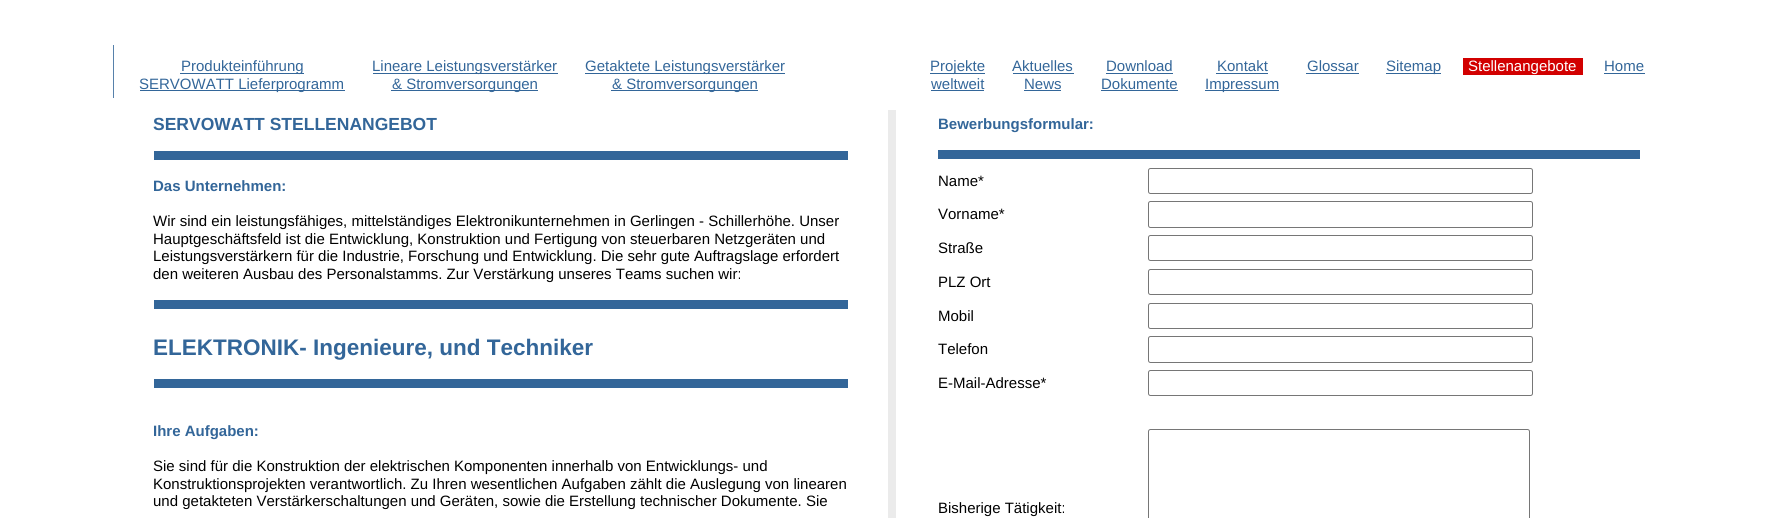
#include <cairo/cairo.h>
#include <math.h>
#include <stddef.h>

static cairo_t *cr;

static void use_color(int r, int g, int b) {
  cairo_set_source_rgb(cr, r / 255.0, g / 255.0, b / 255.0);
}

static void text(double x, double y, const char *s, const char *family, double size, int italic, int bold, int r, int g, int b) {
  cairo_select_font_face(cr, family, italic ? CAIRO_FONT_SLANT_ITALIC : CAIRO_FONT_SLANT_NORMAL,
    bold ? CAIRO_FONT_WEIGHT_BOLD : CAIRO_FONT_WEIGHT_NORMAL);
  cairo_set_font_size(cr, size);
  use_color(r, g, b);
  cairo_move_to(cr, x, y);
  cairo_show_text(cr, s);
}

static void box(double x, double y, double w, double h, int r, int g, int b) {
  use_color(r, g, b);
  cairo_rectangle(cr, x, y, w, h);
  cairo_fill(cr);
}

static void round_rect(double x, double y, double w, double h, double r) {
  cairo_new_sub_path(cr);
  cairo_arc(cr, x + w - r, y + h - r, r, 0, M_PI / 2);
  cairo_arc(cr, x + r, y + h - r, r, M_PI / 2, M_PI);
  cairo_arc(cr, x + r, y + r, r, M_PI, 1.5 * M_PI);
  cairo_arc(cr, x + w - r, y + r, r, 1.5 * M_PI, 2 * M_PI);
  cairo_close_path(cr);
}

static void draw(void) {
  use_color(255, 255, 255);
  cairo_paint(cr);
  box(113, 45, 1, 53, 87, 129, 171);
  box(180, 73, 124, 1, 51, 102, 153);
  box(140, 90, 205, 1, 51, 102, 153);
  box(373, 73, 185, 1, 51, 102, 153);
  box(391, 90, 147, 1, 51, 102, 153);
  box(585, 73, 200, 1, 51, 102, 153);
  box(611, 90, 147, 1, 51, 102, 153);
  box(930, 73, 55, 1, 51, 102, 153);
  box(931, 90, 53, 1, 51, 102, 153);
  box(1013, 73, 61, 1, 51, 102, 153);
  box(1024, 90, 37, 1, 51, 102, 153);
  box(1106, 73, 67, 1, 51, 102, 153);
  box(1101, 90, 77, 1, 51, 102, 153);
  box(1216, 73, 52, 1, 51, 102, 153);
  box(1205, 90, 74, 1, 51, 102, 153);
  box(1306, 73, 53, 1, 51, 102, 153);
  box(1386, 73, 55, 1, 51, 102, 153);
  box(1463, 58, 120, 17, 210, 0, 0);
  box(1604, 73, 41, 1, 51, 102, 153);
  box(154, 151, 694, 9, 51, 102, 153);
  box(154, 300, 694, 9, 51, 102, 153);
  box(154, 379, 694, 9, 51, 102, 153);
  box(888, 110, 8, 408, 235, 235, 235);
  box(938, 150, 702, 9, 51, 102, 153);
  round_rect(1148.5, 168.5, 384, 25, 2);
  use_color(118, 118, 118);
  cairo_set_line_width(cr, 1);
  cairo_stroke(cr);
  round_rect(1148.5, 201.5, 384, 26, 2);
  cairo_stroke(cr);
  round_rect(1148.5, 235.5, 384, 25, 2);
  cairo_stroke(cr);
  round_rect(1148.5, 269.5, 384, 25, 2);
  cairo_stroke(cr);
  round_rect(1148.5, 303.5, 384, 25, 2);
  cairo_stroke(cr);
  round_rect(1148.5, 336.5, 384, 26, 2);
  cairo_stroke(cr);
  round_rect(1148.5, 370.5, 384, 25, 2);
  cairo_stroke(cr);
  round_rect(1148.5, 429.5, 381, 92, 2);
  cairo_stroke(cr);
  text(181, 71, "Produkteinführung", "Liberation Sans", 15, 0, 0, 51, 102, 153);
  text(139, 89, "SERVOWATT Lieferprogramm", "Liberation Sans", 15, 0, 0, 51, 102, 153);
  text(372, 71, "Lineare Leistungsverstärker", "Liberation Sans", 15, 0, 0, 51, 102, 153);
  text(392, 89, "& Stromversorgungen", "Liberation Sans", 15, 0, 0, 51, 102, 153);
  text(585, 71, "Getaktete Leistungsverstärker", "Liberation Sans", 15, 0, 0, 51, 102, 153);
  text(612, 89, "& Stromversorgungen", "Liberation Sans", 15, 0, 0, 51, 102, 153);
  text(930, 71, "Projekte", "Liberation Sans", 15, 0, 0, 51, 102, 153);
  text(931, 89, "weltweit", "Liberation Sans", 15, 0, 0, 51, 102, 153);
  text(1012, 71, "Aktuelles", "Liberation Sans", 15, 0, 0, 51, 102, 153);
  text(1024, 89, "News", "Liberation Sans", 15, 0, 0, 51, 102, 153);
  text(1106, 71, "Download", "Liberation Sans", 15, 0, 0, 51, 102, 153);
  text(1101, 89, "Dokumente", "Liberation Sans", 15, 0, 0, 51, 102, 153);
  text(1217, 71, "Kontakt", "Liberation Sans", 15, 0, 0, 51, 102, 153);
  text(1205, 89, "Impressum", "Liberation Sans", 15, 0, 0, 51, 102, 153);
  text(1307, 71, "Glossar", "Liberation Sans", 15, 0, 0, 51, 102, 153);
  text(1386, 71, "Sitemap", "Liberation Sans", 15, 0, 0, 51, 102, 153);
  text(1468, 71, "Stellenangebote", "Liberation Sans", 15, 0, 0, 255, 255, 255);
  text(1604, 71, "Home", "Liberation Sans", 15, 0, 0, 51, 102, 153);
  text(153, 130, "SERVOWATT STELLENANGEBOT", "Liberation Sans", 17.5, 0, 1, 51, 102, 153);
  text(153, 191, "Das Unternehmen:", "Liberation Sans", 15, 0, 1, 51, 102, 153);
  text(153, 226, "Wir sind ein leistungsfähiges, mittelständiges Elektronikunternehmen in Gerlingen - Schillerhöhe. Unser", "Liberation Sans", 15, 0, 0, 0, 0, 0);
  text(153, 244, "Hauptgeschäftsfeld ist die Entwicklung, Konstruktion und Fertigung von steuerbaren Netzgeräten und", "Liberation Sans", 15, 0, 0, 0, 0, 0);
  text(153, 261, "Leistungsverstärkern für die Industrie, Forschung und Entwicklung. Die sehr gute Auftragslage erfordert", "Liberation Sans", 15, 0, 0, 0, 0, 0);
  text(153, 279, "den weiteren Ausbau des Personalstamms. Zur Verstärkung unseres Teams suchen wir:", "Liberation Sans", 15, 0, 0, 0, 0, 0);
  text(153, 355, "ELEKTRONIK- Ingenieure, und Techniker", "Liberation Sans", 22.5, 0, 1, 51, 102, 153);
  text(153, 436, "Ihre Aufgaben:", "Liberation Sans", 15, 0, 1, 51, 102, 153);
  text(153, 471, "Sie sind für die Konstruktion der elektrischen Komponenten innerhalb von Entwicklungs- und", "Liberation Sans", 15, 0, 0, 0, 0, 0);
  text(153, 489, "Konstruktionsprojekten verantwortlich. Zu Ihren wesentlichen Aufgaben zählt die Auslegung von linearen", "Liberation Sans", 15, 0, 0, 0, 0, 0);
  text(153, 506, "und getakteten Verstärkerschaltungen und Geräten, sowie die Erstellung technischer Dokumente. Sie", "Liberation Sans", 15, 0, 0, 0, 0, 0);
  text(938, 129, "Bewerbungsformular:", "Liberation Sans", 15, 0, 1, 51, 102, 153);
  text(938, 186, "Name*", "Liberation Sans", 15, 0, 0, 0, 0, 0);
  text(938, 219, "Vorname*", "Liberation Sans", 15, 0, 0, 0, 0, 0);
  text(938, 253, "Straße", "Liberation Sans", 15, 0, 0, 0, 0, 0);
  text(938, 287, "PLZ Ort", "Liberation Sans", 15, 0, 0, 0, 0, 0);
  text(938, 321, "Mobil", "Liberation Sans", 15, 0, 0, 0, 0, 0);
  text(938, 354, "Telefon", "Liberation Sans", 15, 0, 0, 0, 0, 0);
  text(938, 388, "E-Mail-Adresse*", "Liberation Sans", 15, 0, 0, 0, 0, 0);
  text(938, 513, "Bisherige Tätigkeit:", "Liberation Sans", 15, 0, 0, 0, 0, 0);
}

int main(void) {
  cairo_surface_t *surface = cairo_image_surface_create(CAIRO_FORMAT_RGB24, 1771, 518);
  cr = cairo_create(surface);
  cairo_font_options_t *options = cairo_font_options_create();
  cairo_font_options_set_hint_metrics(options, CAIRO_HINT_METRICS_OFF);
  cairo_font_options_set_hint_style(options, CAIRO_HINT_STYLE_NONE);
  cairo_set_font_options(cr, options);
  cairo_set_miter_limit(cr, 4);
  draw();
  cairo_surface_write_to_png(surface, "out.png");
  cairo_font_options_destroy(options);
  cairo_destroy(cr);
  cairo_surface_destroy(surface);
  return 0;
}
